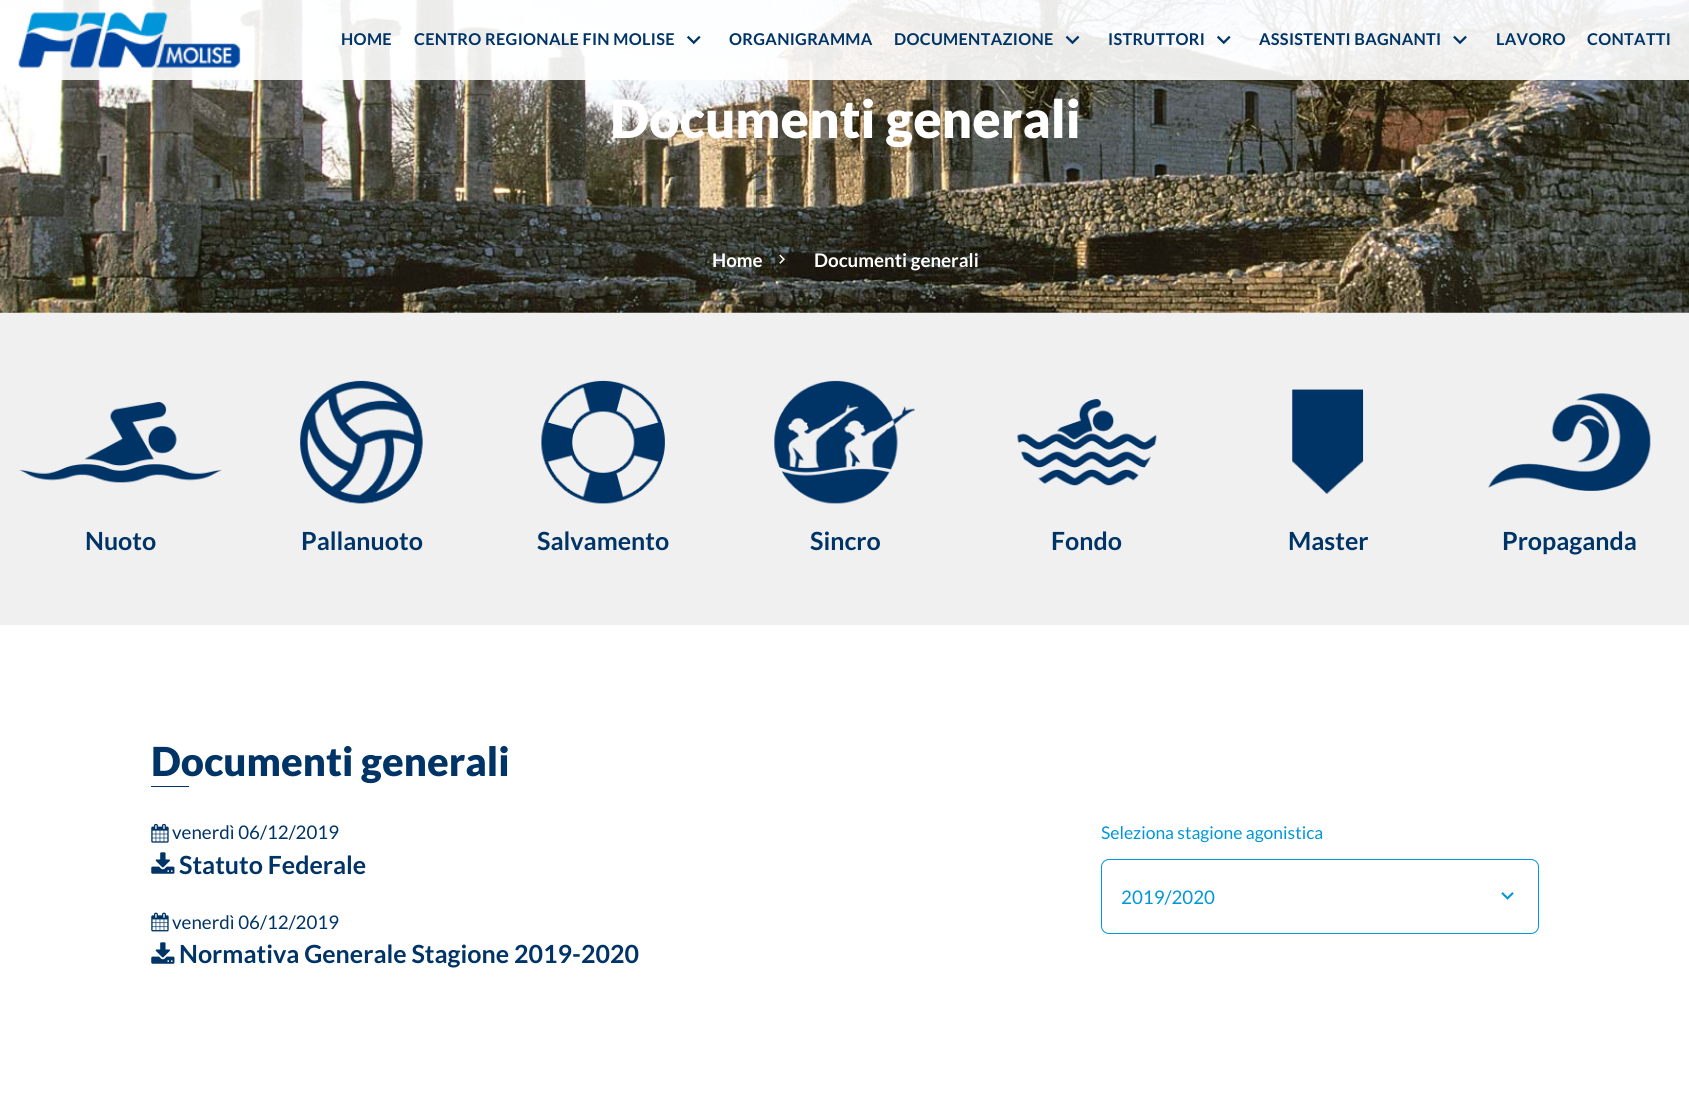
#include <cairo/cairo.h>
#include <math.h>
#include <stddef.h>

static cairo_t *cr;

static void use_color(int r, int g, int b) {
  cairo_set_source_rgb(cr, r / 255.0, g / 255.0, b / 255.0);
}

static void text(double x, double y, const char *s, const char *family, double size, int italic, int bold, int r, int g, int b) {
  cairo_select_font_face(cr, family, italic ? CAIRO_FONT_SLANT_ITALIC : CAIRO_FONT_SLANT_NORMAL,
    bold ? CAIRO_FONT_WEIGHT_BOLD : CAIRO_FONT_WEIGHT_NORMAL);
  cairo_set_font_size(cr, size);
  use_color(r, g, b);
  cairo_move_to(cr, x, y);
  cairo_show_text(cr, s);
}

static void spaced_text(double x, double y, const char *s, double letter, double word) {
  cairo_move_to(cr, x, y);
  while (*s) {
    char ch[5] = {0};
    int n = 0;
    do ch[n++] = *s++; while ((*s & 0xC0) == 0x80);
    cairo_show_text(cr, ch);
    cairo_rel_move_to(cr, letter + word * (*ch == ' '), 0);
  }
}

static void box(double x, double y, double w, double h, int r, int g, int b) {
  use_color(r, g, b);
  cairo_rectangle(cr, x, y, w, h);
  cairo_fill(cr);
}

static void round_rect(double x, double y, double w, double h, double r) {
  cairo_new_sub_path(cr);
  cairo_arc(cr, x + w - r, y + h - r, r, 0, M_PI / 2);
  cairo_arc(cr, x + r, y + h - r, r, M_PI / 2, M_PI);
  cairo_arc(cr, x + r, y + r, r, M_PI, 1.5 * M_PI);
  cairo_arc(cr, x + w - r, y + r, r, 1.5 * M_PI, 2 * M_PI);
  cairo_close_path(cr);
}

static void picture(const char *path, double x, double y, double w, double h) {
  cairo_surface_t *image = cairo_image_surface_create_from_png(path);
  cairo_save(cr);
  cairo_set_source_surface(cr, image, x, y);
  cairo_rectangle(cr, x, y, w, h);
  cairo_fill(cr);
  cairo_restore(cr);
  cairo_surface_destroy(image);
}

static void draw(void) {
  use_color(255, 255, 255);
  cairo_paint(cr);
  picture("img_06.png", 0, 0, 1689, 313);
  cairo_set_source_rgba(cr, 1, 1, 1, 0.9);
  cairo_rectangle(cr, 41, 0, 1648, 80);
  cairo_fill(cr);
  picture("img_01.png", 18, 12, 223, 56);
  picture("img_02.png", 687, 35, 14, 10);
  picture("img_03.png", 1065, 35, 15, 10);
  picture("img_04.png", 1217, 35, 14, 10);
  picture("img_05.png", 1453, 35, 14, 10);
  picture("img_07.png", 779, 254, 6, 10);
  box(0, 313, 1689, 312, 240, 240, 240);
  picture("img_08.png", 19, 402, 203, 81);
  picture("img_09.png", 300, 380, 123, 124);
  picture("img_10.png", 541, 380, 124, 124);
  picture("img_11.png", 774, 380, 141, 124);
  picture("img_12.png", 1017, 399, 140, 87);
  picture("img_13.png", 1292, 389, 72, 105);
  picture("img_14.png", 1488, 393, 163, 98);
  box(151, 786, 38, 1, 0, 51, 102);
  picture("img_15.png", 151, 823, 18, 20);
  picture("img_16.png", 151, 852, 24, 22);
  picture("img_17.png", 151, 912, 18, 20);
  picture("img_16.png", 151, 942, 24, 22);
  round_rect(1101.5, 859.5, 437, 74, 7.5);
  use_color(0, 151, 218);
  cairo_set_line_width(cr, 1);
  cairo_stroke(cr);
  picture("img_18.png", 1501, 892, 13, 8);
  cairo_select_font_face(cr, "Lato", CAIRO_FONT_SLANT_NORMAL, CAIRO_FONT_WEIGHT_BOLD);
  cairo_set_font_size(cr, 16.25);
  use_color(0, 51, 102);
  spaced_text(341, 45, "HOME", 0.3, 0);
  spaced_text(414, 45, "CENTRO REGIONALE FIN MOLISE", 0.3, 0);
  spaced_text(729, 45, "ORGANIGRAMMA", 0.3, 0);
  spaced_text(894, 45, "DOCUMENTAZIONE", 0.3, 0);
  spaced_text(1108, 45, "ISTRUTTORI", 0.3, 0);
  spaced_text(1259, 45, "ASSISTENTI BAGNANTI", 0.3, 0);
  spaced_text(1496, 45, "LAVORO", 0.3, 0);
  spaced_text(1587, 45, "CONTATTI", 0.3, 0);
  text(610, 138, "Documenti generali", "Lato Black", 52.5, 0, 0, 255, 255, 255);
  text(712, 267, "Home", "Lato", 18.75, 0, 1, 255, 255, 255);
  text(814, 267, "Documenti generali", "Lato", 18.75, 0, 1, 255, 255, 255);
  text(85, 550, "Nuoto", "Lato", 25, 0, 1, 0, 51, 102);
  text(301, 550, "Pallanuoto", "Lato", 25, 0, 1, 0, 51, 102);
  text(537, 550, "Salvamento", "Lato", 25, 0, 1, 0, 51, 102);
  text(810, 550, "Sincro", "Lato", 25, 0, 1, 0, 51, 102);
  text(1051, 550, "Fondo", "Lato", 25, 0, 1, 0, 51, 102);
  text(1288, 550, "Master", "Lato", 25, 0, 1, 0, 51, 102);
  text(1502, 550, "Propaganda", "Lato", 25, 0, 1, 0, 51, 102);
  text(151, 776, "Documenti generali", "Lato Black", 40, 0, 0, 0, 51, 102);
  text(172, 839, "venerdì 06/12/2019", "Lato", 18.75, 0, 0, 0, 51, 102);
  text(179, 874, "Statuto Federale", "Lato", 25, 0, 1, 0, 51, 102);
  text(172, 929, "venerdì 06/12/2019", "Lato", 18.75, 0, 0, 0, 51, 102);
  text(179, 963, "Normativa Generale Stagione 2019-2020", "Lato", 25, 0, 1, 0, 51, 102);
  text(1101, 839, "Seleziona stagione agonistica", "Lato", 17.5, 0, 0, 0, 151, 218);
  text(1121, 904, "2019/2020", "Lato", 18.75, 0, 0, 0, 151, 218);
}

int main(void) {
  cairo_surface_t *surface = cairo_image_surface_create(CAIRO_FORMAT_RGB24, 1689, 1118);
  cr = cairo_create(surface);
  cairo_font_options_t *options = cairo_font_options_create();
  cairo_font_options_set_hint_metrics(options, CAIRO_HINT_METRICS_OFF);
  cairo_font_options_set_hint_style(options, CAIRO_HINT_STYLE_NONE);
  cairo_set_font_options(cr, options);
  cairo_set_miter_limit(cr, 4);
  draw();
  cairo_surface_write_to_png(surface, "out.png");
  cairo_font_options_destroy(options);
  cairo_destroy(cr);
  cairo_surface_destroy(surface);
  return 0;
}
